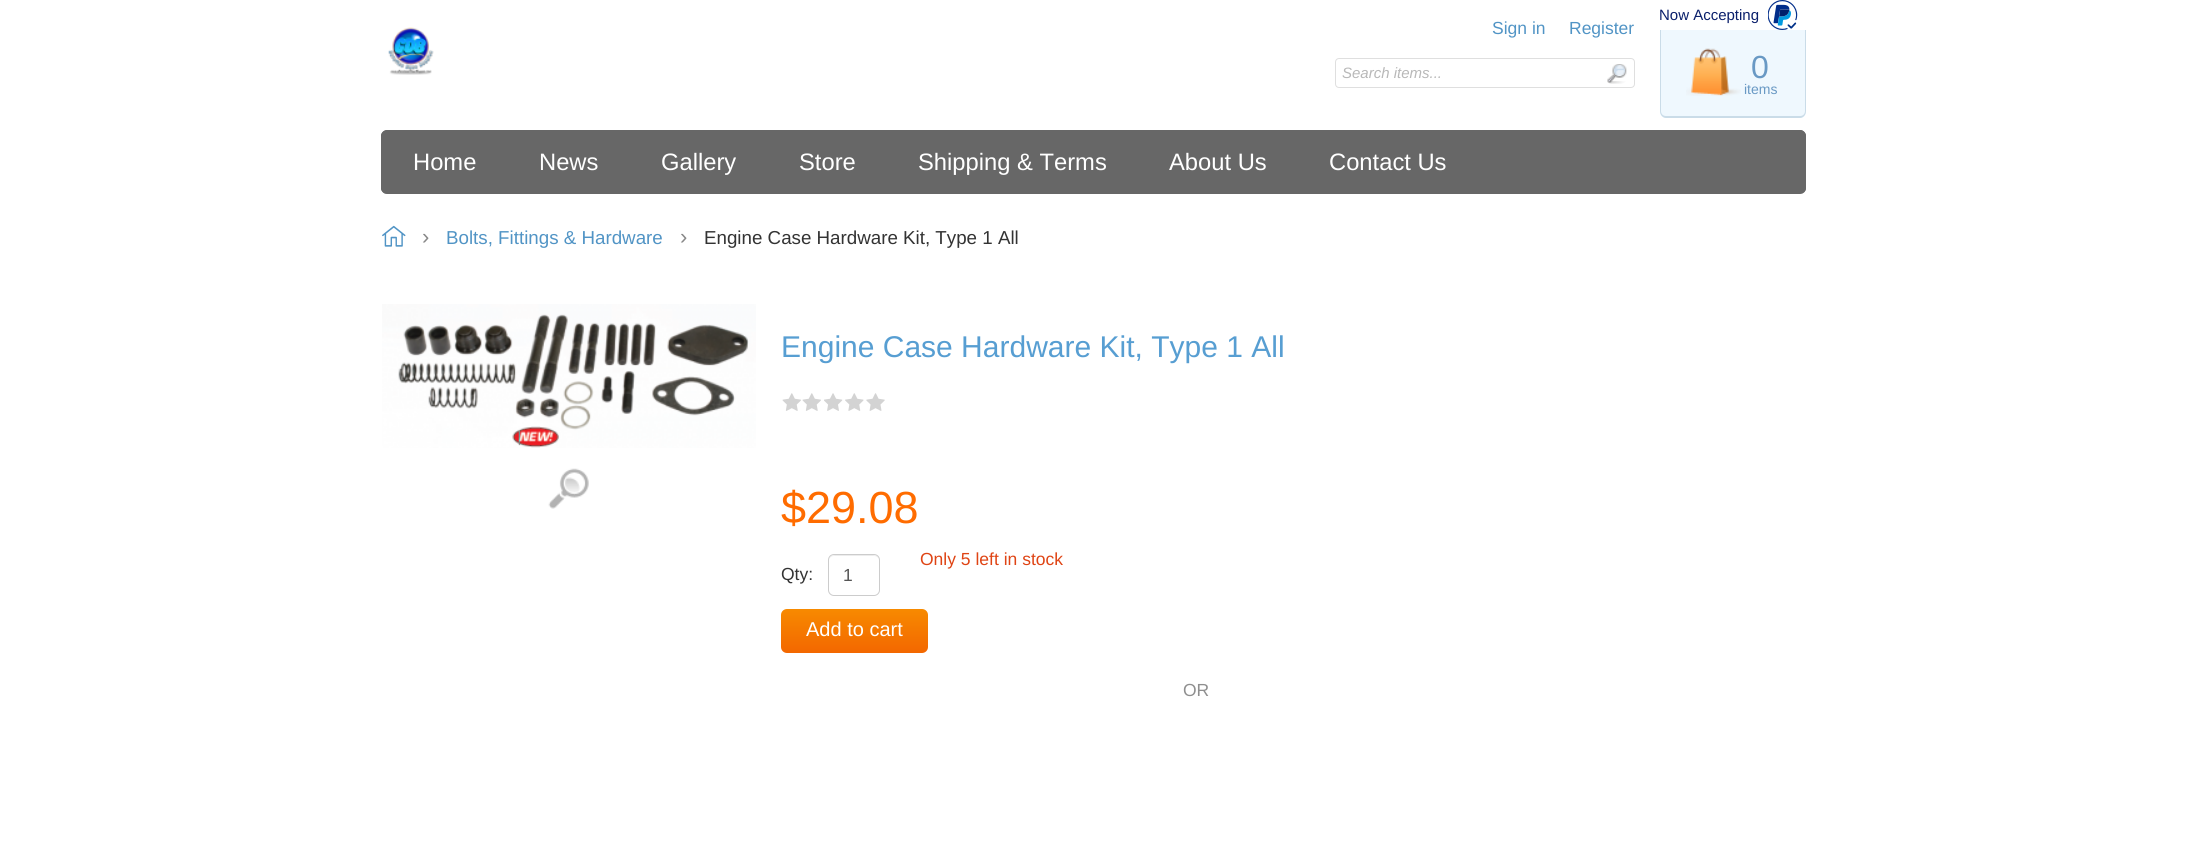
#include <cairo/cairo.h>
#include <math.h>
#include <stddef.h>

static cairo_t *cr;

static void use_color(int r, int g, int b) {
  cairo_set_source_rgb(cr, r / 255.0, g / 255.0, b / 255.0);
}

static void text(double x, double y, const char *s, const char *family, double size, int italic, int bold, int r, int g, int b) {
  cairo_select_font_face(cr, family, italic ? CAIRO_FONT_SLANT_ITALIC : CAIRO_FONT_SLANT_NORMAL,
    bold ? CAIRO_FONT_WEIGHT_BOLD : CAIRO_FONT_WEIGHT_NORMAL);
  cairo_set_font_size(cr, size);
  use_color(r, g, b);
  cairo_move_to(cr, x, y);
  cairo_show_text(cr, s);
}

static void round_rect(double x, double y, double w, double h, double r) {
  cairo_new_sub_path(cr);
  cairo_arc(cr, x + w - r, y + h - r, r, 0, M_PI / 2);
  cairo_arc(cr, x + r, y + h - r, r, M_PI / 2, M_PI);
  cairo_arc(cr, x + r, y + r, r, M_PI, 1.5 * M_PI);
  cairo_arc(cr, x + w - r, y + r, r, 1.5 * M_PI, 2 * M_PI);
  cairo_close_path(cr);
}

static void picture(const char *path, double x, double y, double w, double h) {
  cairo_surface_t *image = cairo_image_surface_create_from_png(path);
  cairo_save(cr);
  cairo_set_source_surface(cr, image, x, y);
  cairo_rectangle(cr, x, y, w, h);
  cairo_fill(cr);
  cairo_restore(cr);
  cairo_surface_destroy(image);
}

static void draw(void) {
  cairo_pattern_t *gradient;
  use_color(255, 255, 255);
  cairo_paint(cr);
  picture("img_01.png", 388, 27, 46, 48);
  round_rect(1335.5, 58.5, 299, 29, 3.5);
  use_color(223, 223, 223);
  cairo_set_line_width(cr, 1);
  cairo_stroke(cr);
  picture("img_02.png", 1607, 64, 20, 20);
  picture("img_03.png", 1768, 0, 30, 30);
  use_color(239, 248, 254);
  cairo_new_path(cr);
  cairo_move_to(cr, 1660, 30);
  cairo_line_to(cr, 1806, 30);
  cairo_line_to(cr, 1806, 112);
  cairo_curve_to(cr, 1806, 115.5, 1803.5, 118, 1800, 118);
  cairo_line_to(cr, 1666, 118);
  cairo_curve_to(cr, 1662.5, 118, 1660, 115.5, 1660, 112);
  cairo_close_path(cr);
  cairo_fill(cr);
  use_color(202, 220, 232);
  cairo_set_fill_rule(cr, CAIRO_FILL_RULE_EVEN_ODD);
  cairo_new_path(cr);
  cairo_move_to(cr, 1660, 30);
  cairo_line_to(cr, 1806, 30);
  cairo_line_to(cr, 1806, 111);
  cairo_curve_to(cr, 1806, 115, 1803, 118, 1800, 118);
  cairo_line_to(cr, 1666, 118);
  cairo_curve_to(cr, 1663, 118, 1660, 115, 1660, 111);
  cairo_close_path(cr);
  cairo_move_to(cr, 1661, 30);
  cairo_line_to(cr, 1805, 30);
  cairo_line_to(cr, 1805, 111);
  cairo_curve_to(cr, 1805, 114, 1803, 116, 1800, 116);
  cairo_line_to(cr, 1666, 116);
  cairo_curve_to(cr, 1663, 116, 1661, 114, 1661, 111);
  cairo_close_path(cr);
  cairo_fill(cr);
  picture("img_04.png", 1686, 48, 55, 48);
  use_color(103, 103, 103);
  round_rect(381, 130, 1425, 64, 6);
  cairo_fill(cr);
  cairo_new_path(cr);
  cairo_move_to(cr, 388, 130);
  cairo_line_to(cr, 1800, 130);
  cairo_curve_to(cr, 1803, 130, 1806, 133, 1806, 136);
  cairo_line_to(cr, 1806, 188);
  cairo_curve_to(cr, 1806, 191, 1803, 194, 1800, 194);
  cairo_line_to(cr, 388, 194);
  cairo_curve_to(cr, 384, 194, 381, 191, 381, 188);
  cairo_line_to(cr, 381, 136);
  cairo_curve_to(cr, 381, 133, 384, 130, 388, 130);
  cairo_close_path(cr);
  cairo_move_to(cr, 388, 131);
  cairo_line_to(cr, 1800, 131);
  cairo_curve_to(cr, 1803, 131, 1805, 133, 1805, 136);
  cairo_line_to(cr, 1805, 188);
  cairo_curve_to(cr, 1805, 191, 1803, 194, 1800, 194);
  cairo_line_to(cr, 388, 194);
  cairo_curve_to(cr, 385, 194, 382, 191, 382, 188);
  cairo_line_to(cr, 382, 136);
  cairo_curve_to(cr, 382, 133, 385, 131, 388, 131);
  cairo_close_path(cr);
  cairo_fill(cr);
  picture("img_05.png", 382, 225, 24, 22);
  picture("img_06.png", 382, 304, 374, 144);
  picture("img_07.png", 548, 468, 41, 41);
  picture("img_08.png", 782, 393, 19, 18);
  picture("img_08.png", 802, 393, 19, 18);
  picture("img_09.png", 824, 393, 19, 18);
  picture("img_10.png", 845, 393, 19, 18);
  picture("img_11.png", 866, 393, 19, 18);
  use_color(236, 236, 236);
  cairo_set_fill_rule(cr, CAIRO_FILL_RULE_WINDING);
  cairo_new_path(cr);
  cairo_move_to(cr, 834, 556);
  cairo_line_to(cr, 874, 556);
  cairo_curve_to(cr, 877, 556, 879, 558, 879, 561);
  cairo_curve_to(cr, 879, 554, 873, 555, 867, 555);
  cairo_line_to(cr, 841, 555);
  cairo_curve_to(cr, 835, 555, 829, 554, 829, 561);
  cairo_curve_to(cr, 829, 558, 831, 556, 834, 556);
  cairo_close_path(cr);
  cairo_fill(cr);
  round_rect(828.5, 554.5, 51, 41, 5.5);
  use_color(204, 204, 204);
  cairo_stroke(cr);
  gradient = cairo_pattern_create_linear(854, 609, 854, 653);
  cairo_pattern_add_color_stop_rgba(gradient, 0, 0.969, 0.541, 0, 1);
  cairo_pattern_add_color_stop_rgba(gradient, 1, 0.953, 0.404, 0, 1);
  cairo_set_source(cr, gradient);
  cairo_pattern_destroy(gradient);
  round_rect(781, 609, 147, 44, 6);
  cairo_fill(cr);
  text(1492, 34, "Sign in", "Liberation Sans", 17.5, 0, 0, 81, 148, 197);
  text(1569, 34, "Register", "Liberation Sans", 17.5, 0, 0, 81, 148, 197);
  text(1342, 78, "Search items...", "Liberation Sans", 15, 1, 0, 184, 184, 184);
  text(1659, 20, "Now Accepting", "Liberation Sans", 15, 0, 0, 10, 31, 107);
  text(1751, 78, "0", "Liberation Sans", 32, 0, 0, 105, 153, 196);
  text(1744, 94, "items", "Liberation Sans", 14, 0, 0, 105, 153, 196);
  text(413, 170, "Home", "Liberation Sans", 23.75, 0, 0, 255, 255, 255);
  text(539, 170, "News", "Liberation Sans", 23.75, 0, 0, 255, 255, 255);
  text(661, 170, "Gallery", "Liberation Sans", 23.75, 0, 0, 255, 255, 255);
  text(799, 170, "Store", "Liberation Sans", 23.75, 0, 0, 255, 255, 255);
  text(918, 170, "Shipping & Terms", "Liberation Sans", 23.75, 0, 0, 255, 255, 255);
  text(1169, 170, "About Us", "Liberation Sans", 23.75, 0, 0, 255, 255, 255);
  text(1329, 170, "Contact Us", "Liberation Sans", 23.75, 0, 0, 255, 255, 255);
  text(422, 244, "›", "Liberation Sans", 22, 0, 0, 136, 136, 136);
  text(446, 244, "Bolts, Fittings & Hardware", "Liberation Sans", 18.75, 0, 0, 81, 148, 197);
  text(680, 244, "›", "Liberation Sans", 22, 0, 0, 136, 136, 136);
  text(704, 244, "Engine Case Hardware Kit, Type 1 All", "Liberation Sans", 18.75, 0, 0, 51, 51, 51);
  text(781, 357, "Engine Case Hardware Kit, Type 1 All", "Liberation Sans", 30, 0, 0, 87, 158, 210);
  text(781, 523, "$29.08", "Liberation Sans", 45, 0, 0, 255, 108, 0);
  text(920, 565, "Only 5 left in stock", "Liberation Sans", 17.5, 0, 0, 223, 68, 20);
  text(781, 580, "Qty:", "Liberation Sans", 17.5, 0, 0, 51, 51, 51);
  text(843, 581, "1", "Liberation Sans", 17.5, 0, 0, 85, 85, 85);
  text(806, 636, "Add to cart", "Liberation Sans", 20, 0, 0, 255, 255, 255);
  text(1183, 696, "OR", "Liberation Sans", 17.5, 0, 0, 143, 143, 143);
}

int main(void) {
  cairo_surface_t *surface = cairo_image_surface_create(CAIRO_FORMAT_RGB24, 2186, 841);
  cr = cairo_create(surface);
  cairo_font_options_t *options = cairo_font_options_create();
  cairo_font_options_set_hint_metrics(options, CAIRO_HINT_METRICS_OFF);
  cairo_font_options_set_hint_style(options, CAIRO_HINT_STYLE_NONE);
  cairo_set_font_options(cr, options);
  cairo_set_miter_limit(cr, 4);
  draw();
  cairo_surface_write_to_png(surface, "out.png");
  cairo_font_options_destroy(options);
  cairo_destroy(cr);
  cairo_surface_destroy(surface);
  return 0;
}
